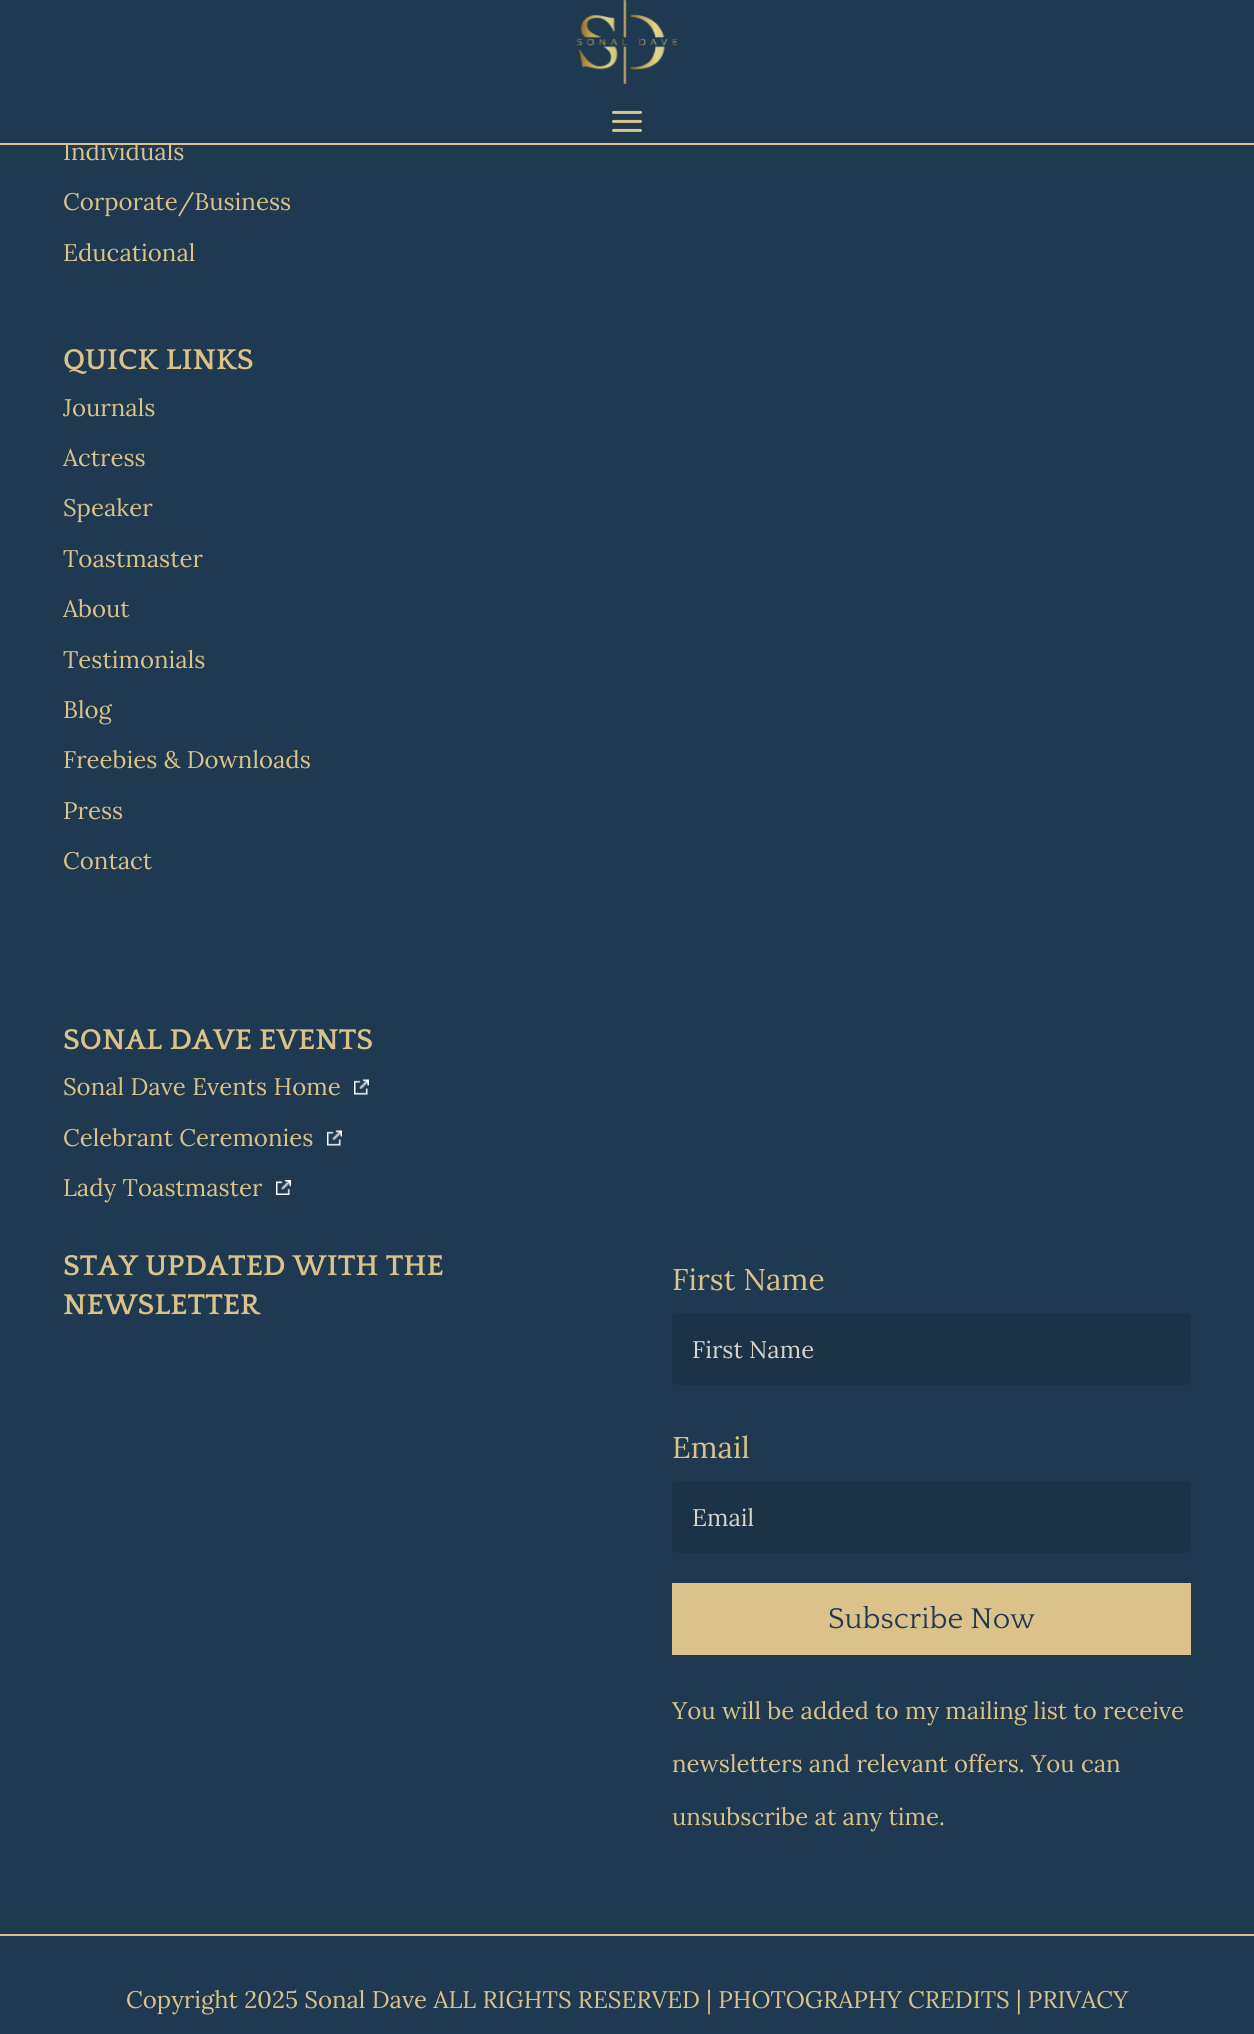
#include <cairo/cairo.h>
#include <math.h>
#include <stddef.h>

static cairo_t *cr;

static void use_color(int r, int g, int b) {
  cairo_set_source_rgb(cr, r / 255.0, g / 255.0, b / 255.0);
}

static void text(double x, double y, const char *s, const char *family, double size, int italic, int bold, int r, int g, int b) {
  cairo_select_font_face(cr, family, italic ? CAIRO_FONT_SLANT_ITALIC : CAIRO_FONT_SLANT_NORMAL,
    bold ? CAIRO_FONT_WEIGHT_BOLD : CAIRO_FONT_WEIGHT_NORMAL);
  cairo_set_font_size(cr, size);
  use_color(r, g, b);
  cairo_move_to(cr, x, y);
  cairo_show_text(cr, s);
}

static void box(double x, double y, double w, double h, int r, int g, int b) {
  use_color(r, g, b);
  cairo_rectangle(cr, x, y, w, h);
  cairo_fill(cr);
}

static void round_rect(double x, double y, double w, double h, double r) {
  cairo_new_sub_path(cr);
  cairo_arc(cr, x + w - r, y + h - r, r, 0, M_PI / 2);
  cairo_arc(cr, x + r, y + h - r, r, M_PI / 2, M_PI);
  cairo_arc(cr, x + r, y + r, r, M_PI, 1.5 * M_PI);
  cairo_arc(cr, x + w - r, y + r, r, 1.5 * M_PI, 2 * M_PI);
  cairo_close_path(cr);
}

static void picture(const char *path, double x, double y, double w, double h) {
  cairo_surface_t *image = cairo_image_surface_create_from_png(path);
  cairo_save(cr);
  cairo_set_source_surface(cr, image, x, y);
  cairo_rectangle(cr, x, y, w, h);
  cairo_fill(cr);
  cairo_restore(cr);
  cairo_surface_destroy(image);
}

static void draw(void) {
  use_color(31, 57, 81);
  cairo_paint(cr);
  box(0, 143, 1254, 2, 219, 194, 138);
  picture("img_01.png", 576, 0, 102, 84);
  picture("img_02.png", 612, 110, 30, 22);
  picture("img_03.png", 354, 1079, 15, 16);
  picture("img_03.png", 327, 1130, 15, 16);
  picture("img_04.png", 276, 1180, 15, 15);
  use_color(27, 50, 71);
  round_rect(672, 1313, 519, 72, 5);
  cairo_fill(cr);
  round_rect(672, 1481, 519, 72, 5);
  cairo_fill(cr);
  box(672, 1583, 519, 72, 219, 194, 138);
  box(0, 1934, 1254, 2, 219, 194, 138);
  text(63, 160, "Individuals", "Lora", 24, 0, 0, 219, 194, 138);
  box(93, 141, 78, 2, 31, 57, 81);
  text(63, 210, "Corporate/Business", "Lora", 24, 0, 0, 219, 194, 138);
  text(63, 261, "Educational", "Lora", 24, 0, 0, 219, 194, 138);
  text(63, 369, "QUICK LINKS", "Quattrocento", 30, 0, 1, 219, 194, 138);
  text(63, 416, "Journals", "Lora", 24, 0, 0, 219, 194, 138);
  text(63, 466, "Actress", "Lora", 24, 0, 0, 219, 194, 138);
  text(63, 516, "Speaker", "Lora", 24, 0, 0, 219, 194, 138);
  text(63, 567, "Toastmaster", "Lora", 24, 0, 0, 219, 194, 138);
  text(63, 617, "About", "Lora", 24, 0, 0, 219, 194, 138);
  text(63, 668, "Testimonials", "Lora", 24, 0, 0, 219, 194, 138);
  text(63, 718, "Blog", "Lora", 24, 0, 0, 219, 194, 138);
  text(63, 768, "Freebies & Downloads", "Lora", 24, 0, 0, 219, 194, 138);
  text(63, 819, "Press", "Lora", 24, 0, 0, 219, 194, 138);
  text(63, 869, "Contact", "Lora", 24, 0, 0, 219, 194, 138);
  text(63, 1049, "SONAL DAVE EVENTS", "Quattrocento", 30, 0, 1, 219, 194, 138);
  text(63, 1095, "Sonal Dave Events Home", "Lora", 24, 0, 0, 219, 194, 138);
  text(63, 1146, "Celebrant Ceremonies", "Lora", 24, 0, 0, 219, 194, 138);
  text(63, 1196, "Lady Toastmaster", "Lora", 24, 0, 0, 219, 194, 138);
  text(63, 1275, "STAY UPDATED WITH THE", "Quattrocento", 30, 0, 1, 219, 194, 138);
  text(63, 1314, "NEWSLETTER", "Quattrocento", 30, 0, 1, 219, 194, 138);
  text(672, 1290, "First Name", "Lora", 30, 0, 0, 219, 194, 138);
  text(692, 1358, "First Name", "Lora", 24, 0, 0, 219, 211, 197);
  text(672, 1458, "Email", "Lora", 30, 0, 0, 219, 194, 138);
  text(692, 1526, "Email", "Lora", 24, 0, 0, 219, 211, 197);
  text(828, 1628, "Subscribe Now", "Quattrocento", 30, 0, 0, 31, 57, 81);
  text(672, 1719, "You will be added to my mailing list to receive", "Lora", 24, 0, 0, 219, 194, 138);
  text(672, 1772, "newsletters and relevant offers. You can", "Lora", 24, 0, 0, 219, 194, 138);
  text(672, 1825, "unsubscribe at any time.", "Lora", 24, 0, 0, 219, 194, 138);
  text(126, 2008, "Copyright 2025 Sonal Dave ALL RIGHTS RESERVED | PHOTOGRAPHY CREDITS | PRIVACY", "Lora", 24, 0, 0, 219, 194, 138);
}

int main(void) {
  cairo_surface_t *surface = cairo_image_surface_create(CAIRO_FORMAT_RGB24, 1254, 2034);
  cr = cairo_create(surface);
  cairo_font_options_t *options = cairo_font_options_create();
  cairo_font_options_set_hint_metrics(options, CAIRO_HINT_METRICS_OFF);
  cairo_font_options_set_hint_style(options, CAIRO_HINT_STYLE_NONE);
  cairo_set_font_options(cr, options);
  cairo_set_miter_limit(cr, 4);
  draw();
  cairo_surface_write_to_png(surface, "out.png");
  cairo_font_options_destroy(options);
  cairo_destroy(cr);
  cairo_surface_destroy(surface);
  return 0;
}
